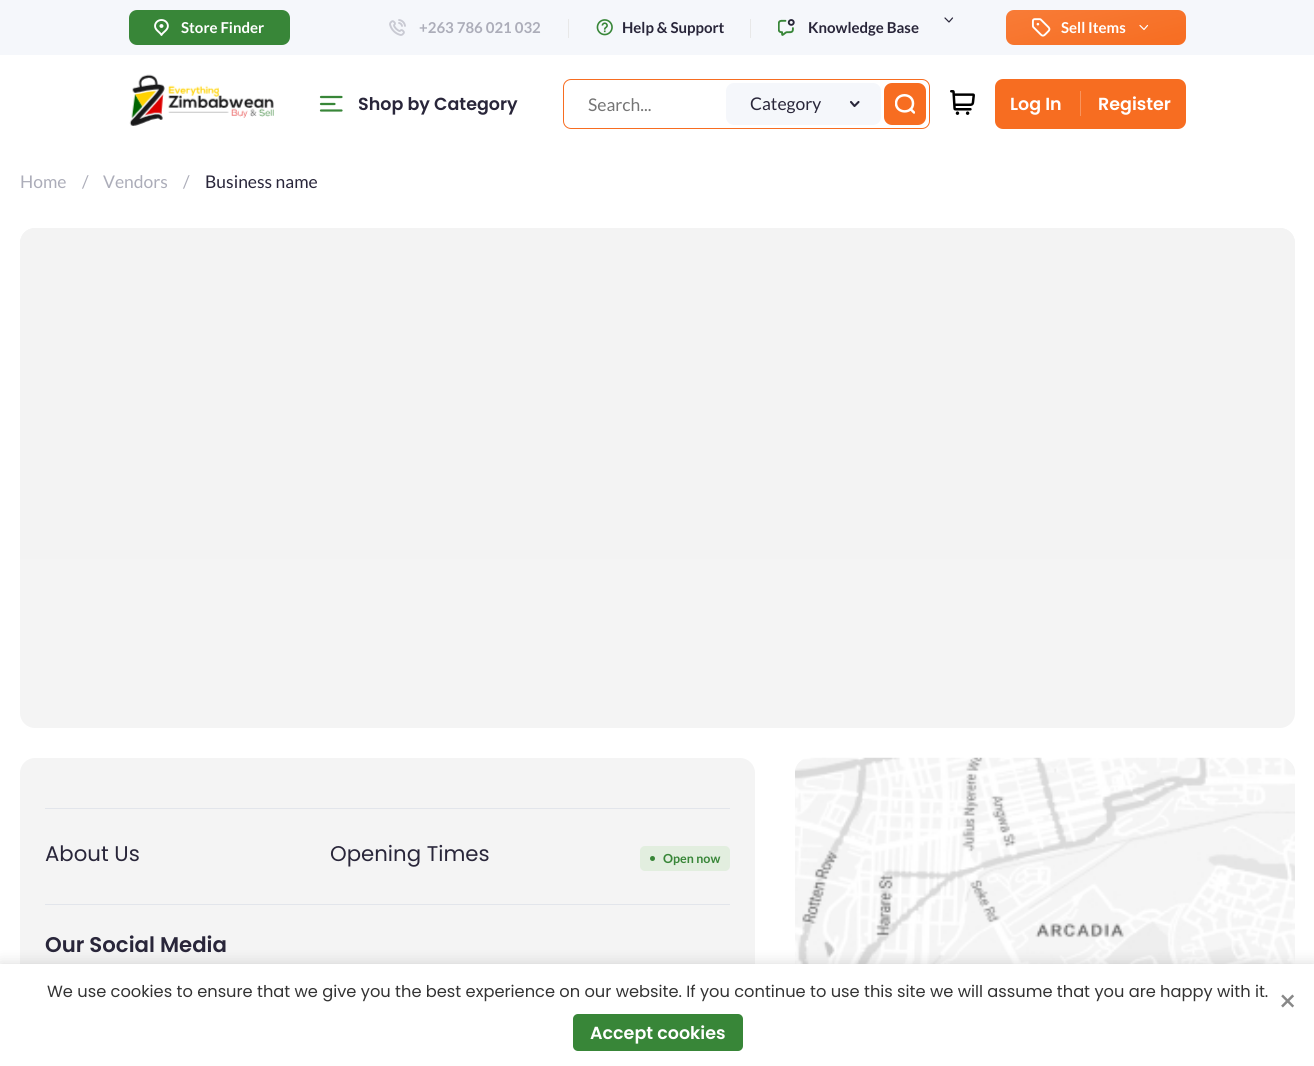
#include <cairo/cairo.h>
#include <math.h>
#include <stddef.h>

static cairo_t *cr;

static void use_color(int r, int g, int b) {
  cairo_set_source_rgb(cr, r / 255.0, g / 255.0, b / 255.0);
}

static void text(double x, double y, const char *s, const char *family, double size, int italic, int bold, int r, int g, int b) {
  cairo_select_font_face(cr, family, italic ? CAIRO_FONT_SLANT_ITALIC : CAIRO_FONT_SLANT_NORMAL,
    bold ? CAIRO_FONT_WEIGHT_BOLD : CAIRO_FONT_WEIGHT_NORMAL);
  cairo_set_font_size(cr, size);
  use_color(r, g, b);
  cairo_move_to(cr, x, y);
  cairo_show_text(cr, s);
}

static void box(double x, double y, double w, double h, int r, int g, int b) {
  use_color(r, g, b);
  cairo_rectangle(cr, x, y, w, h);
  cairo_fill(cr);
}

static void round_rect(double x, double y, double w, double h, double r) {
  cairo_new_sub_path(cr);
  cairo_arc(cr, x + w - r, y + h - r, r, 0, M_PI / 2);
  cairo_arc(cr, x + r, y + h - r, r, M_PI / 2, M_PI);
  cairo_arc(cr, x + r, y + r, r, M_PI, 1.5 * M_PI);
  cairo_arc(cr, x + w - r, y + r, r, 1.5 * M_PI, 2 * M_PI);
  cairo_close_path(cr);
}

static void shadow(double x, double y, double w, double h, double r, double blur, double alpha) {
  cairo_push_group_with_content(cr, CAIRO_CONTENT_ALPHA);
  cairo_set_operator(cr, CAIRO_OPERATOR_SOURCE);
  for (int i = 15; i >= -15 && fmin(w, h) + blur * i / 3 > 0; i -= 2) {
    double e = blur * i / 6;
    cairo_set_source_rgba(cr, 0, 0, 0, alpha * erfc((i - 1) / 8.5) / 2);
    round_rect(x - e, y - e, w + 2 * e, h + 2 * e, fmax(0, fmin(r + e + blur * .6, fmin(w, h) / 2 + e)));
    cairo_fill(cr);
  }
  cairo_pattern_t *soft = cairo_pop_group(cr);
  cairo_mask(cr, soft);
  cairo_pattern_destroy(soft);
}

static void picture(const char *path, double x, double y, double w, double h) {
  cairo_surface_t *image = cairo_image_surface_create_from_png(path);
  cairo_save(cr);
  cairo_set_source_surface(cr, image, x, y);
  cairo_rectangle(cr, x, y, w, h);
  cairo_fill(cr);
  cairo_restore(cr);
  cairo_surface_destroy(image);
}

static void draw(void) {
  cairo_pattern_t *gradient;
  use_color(255, 255, 255);
  cairo_paint(cr);
  box(0, 0, 1314, 55, 245, 247, 251);
  use_color(56, 134, 56);
  round_rect(129, 10, 161, 35, 8);
  cairo_fill(cr);
  picture("img_01.png", 154, 19, 15, 17);
  picture("img_02.png", 389, 19, 17, 17);
  box(568, 19, 1, 19, 232, 232, 232);
  picture("img_03.png", 596, 19, 17, 17);
  box(750, 19, 1, 19, 232, 232, 232);
  picture("img_04.png", 778, 19, 17, 17);
  cairo_new_path(cr);
  cairo_move_to(cr, 945, 18);
  cairo_line_to(cr, 949, 22);
  cairo_line_to(cr, 952.5, 18);
  use_color(41, 38, 58);
  cairo_set_line_width(cr, 1.2);
  cairo_set_line_cap(cr, CAIRO_LINE_CAP_ROUND);
  cairo_set_line_join(cr, CAIRO_LINE_JOIN_ROUND);
  cairo_stroke(cr);
  use_color(247, 109, 33);
  round_rect(1006, 10, 180, 35, 8);
  cairo_fill(cr);
  gradient = cairo_pattern_create_linear(1087, -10, 1106, 65);
  cairo_pattern_add_color_stop_rgba(gradient, 0, 1, 1, 1, 0.1);
  cairo_pattern_add_color_stop_rgba(gradient, 1, 1, 1, 1, 0);
  cairo_set_source(cr, gradient);
  cairo_pattern_destroy(gradient);
  round_rect(1006, 10, 180, 35, 8);
  cairo_fill(cr);
  picture("img_05.png", 1031, 18, 20, 19);
  cairo_new_path(cr);
  cairo_move_to(cr, 1140, 25.5);
  cairo_line_to(cr, 1144, 29.5);
  cairo_line_to(cr, 1147.5, 25.5);
  use_color(255, 255, 255);
  cairo_stroke(cr);
  picture("img_06.png", 129, 74, 145, 52);
  cairo_new_path(cr);
  cairo_move_to(cr, 321, 104);
  cairo_line_to(cr, 334.5, 104);
  cairo_move_to(cr, 321, 97);
  cairo_line_to(cr, 341.5, 97);
  cairo_move_to(cr, 321, 110.5);
  cairo_line_to(cr, 341.5, 110.5);
  use_color(56, 134, 56);
  cairo_set_line_width(cr, 2.2);
  cairo_stroke(cr);
  round_rect(563.5, 79.5, 366, 49, 7.5);
  use_color(247, 109, 33);
  cairo_set_line_width(cr, 1);
  cairo_set_line_cap(cr, CAIRO_LINE_CAP_BUTT);
  cairo_set_line_join(cr, CAIRO_LINE_JOIN_MITER);
  cairo_stroke(cr);
  use_color(245, 247, 251);
  round_rect(726, 83, 155, 42, 8);
  cairo_fill(cr);
  cairo_new_path(cr);
  cairo_move_to(cr, 858.5, 102);
  cairo_line_to(cr, 854.5, 106);
  cairo_line_to(cr, 851, 102);
  use_color(41, 38, 58);
  cairo_set_line_width(cr, 2.1);
  cairo_set_line_cap(cr, CAIRO_LINE_CAP_ROUND);
  cairo_set_line_join(cr, CAIRO_LINE_JOIN_ROUND);
  cairo_stroke(cr);
  use_color(247, 109, 33);
  round_rect(884, 83, 42, 42, 8);
  cairo_fill(cr);
  cairo_save(cr);
  cairo_rectangle(cr, 895, 94, 20, 20);
  cairo_clip(cr);
  cairo_new_path(cr);
  cairo_move_to(cr, 914, 112.5);
  cairo_line_to(cr, 910.5, 109);
  cairo_move_to(cr, 913, 103.5);
  cairo_curve_to(cr, 913, 114, 896.5, 114, 896, 103.5);
  cairo_curve_to(cr, 896, 92.5, 913, 92.5, 913, 103.5);
  cairo_close_path(cr);
  use_color(255, 255, 255);
  cairo_set_line_width(cr, 2.5);
  cairo_stroke(cr);
  cairo_restore(cr);
  picture("img_07.png", 950, 90, 25, 25);
  round_rect(995, 79, 191, 50, 8);
  cairo_fill(cr);
  box(1080, 91, 1, 25, 249, 148, 93);
  use_color(244, 244, 244);
  round_rect(20, 228, 1275, 500, 15);
  cairo_fill(cr);
  gradient = cairo_pattern_create_linear(-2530, 228, -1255, 228);
  cairo_pattern_add_color_stop_rgba(gradient, 0, 0.953, 0.953, 0.953, 1);
  cairo_pattern_add_color_stop_rgba(gradient, 0.5, 0.925, 0.922, 0.922, 1);
  cairo_pattern_add_color_stop_rgba(gradient, 1, 0.953, 0.953, 0.953, 1);
  cairo_set_source(cr, gradient);
  cairo_pattern_destroy(gradient);
  cairo_new_path(cr);
  cairo_move_to(cr, 35, 228);
  cairo_line_to(cr, 1280, 228);
  cairo_curve_to(cr, 1288.5, 228, 1295, 234.5, 1295, 243);
  cairo_line_to(cr, 1295, 559);
  cairo_line_to(cr, 20, 559);
  cairo_line_to(cr, 20, 243);
  cairo_curve_to(cr, 20, 234.5, 26.5, 228, 35, 228);
  cairo_close_path(cr);
  cairo_fill(cr);
  use_color(244, 244, 244);
  round_rect(20, 758, 735, 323, 15);
  cairo_fill(cr);
  box(45, 808, 685, 1, 226, 229, 235);
  use_color(226, 238, 223);
  round_rect(640, 846, 90, 25, 5);
  cairo_fill(cr);
  use_color(56, 134, 56);
  cairo_arc(cr, 652.5, 858.5, 2.5, 0, 2 * M_PI);
  cairo_fill(cr);
  box(45, 904, 685, 1, 226, 229, 235);
  picture("img_08.png", 795, 757, 500, 207);
  use_color(0, 0, 0);
  shadow(1215, 971, 75, 75, 37.5, 7.5, 0.15);
  shadow(0, 964, 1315, 102, 0, 7.5, 0.15);
  box(0, 964, 1314, 102, 255, 255, 255);
  use_color(56, 134, 56);
  round_rect(573, 1014, 170, 37, 5);
  cairo_fill(cr);
  text(181, 33, "Store Finder", "Lato", 15, 0, 1, 255, 255, 255);
  text(419, 33, "+263 786 021 032", "Lato", 15, 0, 1, 172, 173, 185);
  text(622, 33, "Help & Support", "Lato", 15, 0, 1, 41, 38, 58);
  text(808, 33, "Knowledge Base", "Lato", 15, 0, 1, 41, 38, 58);
  text(1061, 33, "Sell Items", "Lato", 15, 0, 1, 255, 255, 255);
  text(358, 110, "Shop by Category", "Poppins SemiBold", 17.5, 0, 0, 41, 38, 58);
  text(588, 111, "Search...", "Lato", 17.5, 0, 0, 117, 117, 117);
  text(750, 110, "Category", "Lato", 17.5, 0, 0, 41, 38, 58);
  text(1010, 110, "Log In", "Poppins SemiBold", 17.5, 0, 0, 255, 255, 255);
  text(1098, 110, "Register", "Poppins SemiBold", 17.5, 0, 0, 255, 255, 255);
  text(20, 188, "Home", "Lato", 17.5, 0, 0, 172, 173, 185);
  text(82, 188, "/", "Lato", 17.5, 0, 0, 172, 173, 185);
  text(103, 188, "Vendors", "Lato", 17.5, 0, 0, 172, 173, 185);
  text(183, 188, "/", "Lato", 17.5, 0, 0, 172, 173, 185);
  text(205, 188, "Business name", "Lato", 17.5, 0, 0, 41, 38, 58);
  text(45, 861, "About Us", "Poppins", 21.25, 0, 0, 41, 38, 58);
  text(330, 861, "Opening Times", "Poppins", 21.25, 0, 0, 41, 38, 58);
  text(663, 863, "Open now", "Lato", 12.5, 0, 1, 56, 134, 56);
  text(45, 952, "Our Social Media", "Poppins SemiBold", 21.25, 0, 0, 41, 38, 58);
  text(47, 997, "We use cookies to ensure that we give you the best experience on our website. If you continue to use this site we will assume that you are happy with it.", "Poppins", 16.25, 0, 0, 51, 51, 51);
  text(1278, 1012, "×", "Poppins", 30, 0, 0, 136, 136, 136);
  text(590, 1039, "Accept cookies", "Poppins SemiBold", 17.5, 0, 0, 255, 255, 255);
}

int main(void) {
  cairo_surface_t *surface = cairo_image_surface_create(CAIRO_FORMAT_RGB24, 1314, 1066);
  cr = cairo_create(surface);
  cairo_font_options_t *options = cairo_font_options_create();
  cairo_font_options_set_hint_metrics(options, CAIRO_HINT_METRICS_OFF);
  cairo_font_options_set_hint_style(options, CAIRO_HINT_STYLE_NONE);
  cairo_set_font_options(cr, options);
  cairo_set_miter_limit(cr, 4);
  draw();
  cairo_surface_write_to_png(surface, "out.png");
  cairo_font_options_destroy(options);
  cairo_destroy(cr);
  cairo_surface_destroy(surface);
  return 0;
}
